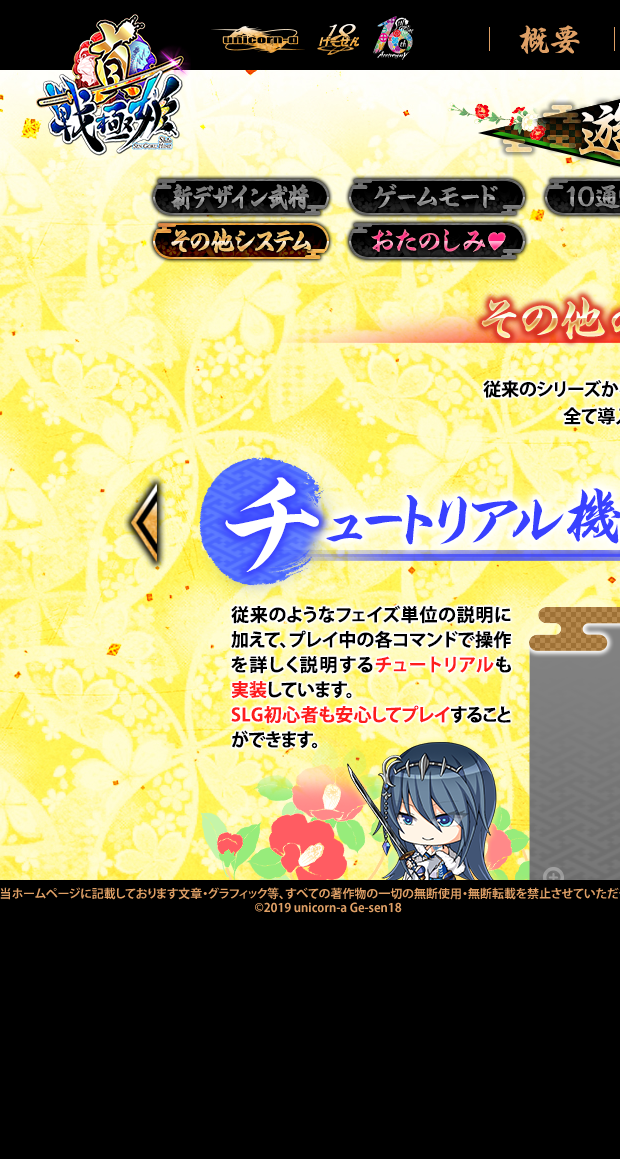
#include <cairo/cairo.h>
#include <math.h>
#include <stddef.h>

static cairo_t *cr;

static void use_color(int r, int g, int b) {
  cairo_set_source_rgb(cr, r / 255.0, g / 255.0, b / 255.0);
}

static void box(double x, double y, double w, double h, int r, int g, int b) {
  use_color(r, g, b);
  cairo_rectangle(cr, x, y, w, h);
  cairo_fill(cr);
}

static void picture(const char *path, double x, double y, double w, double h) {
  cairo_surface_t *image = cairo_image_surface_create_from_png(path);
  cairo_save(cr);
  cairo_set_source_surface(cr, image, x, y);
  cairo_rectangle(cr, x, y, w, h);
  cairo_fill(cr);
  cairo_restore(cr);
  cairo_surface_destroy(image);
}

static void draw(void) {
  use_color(0, 0, 0);
  cairo_paint(cr);
  picture("img_01.png", 0, 69, 620, 811);
  picture("img_02.png", 36, 14, 155, 142);
  picture("img_03.png", 211, 26, 94, 27);
  picture("img_04.png", 317, 24, 42, 31);
  picture("img_05.png", 373, 16, 41, 44);
  picture("img_06.png", 489, 25, 91, 29);
  box(614, 27, 1, 24, 222, 159, 101);
  picture("img_07.png", 124, 476, 42, 94);
  picture("img_08.png", 447, 95, 173, 73);
  picture("img_09.png", 149, 175, 184, 44);
  picture("img_10.png", 345, 175, 184, 44);
  picture("img_11.png", 541, 175, 79, 44);
  picture("img_12.png", 149, 219, 184, 44);
  picture("img_13.png", 345, 219, 184, 44);
  picture("img_14.png", 278, 289, 342, 139);
  picture("img_15.png", 199, 457, 421, 423);
  picture("img_16.png", 0, 887, 620, 26);
}

int main(void) {
  cairo_surface_t *surface = cairo_image_surface_create(CAIRO_FORMAT_RGB24, 620, 1159);
  cr = cairo_create(surface);
  cairo_font_options_t *options = cairo_font_options_create();
  cairo_font_options_set_hint_metrics(options, CAIRO_HINT_METRICS_OFF);
  cairo_font_options_set_hint_style(options, CAIRO_HINT_STYLE_NONE);
  cairo_set_font_options(cr, options);
  cairo_set_miter_limit(cr, 4);
  draw();
  cairo_surface_write_to_png(surface, "out.png");
  cairo_font_options_destroy(options);
  cairo_destroy(cr);
  cairo_surface_destroy(surface);
  return 0;
}
